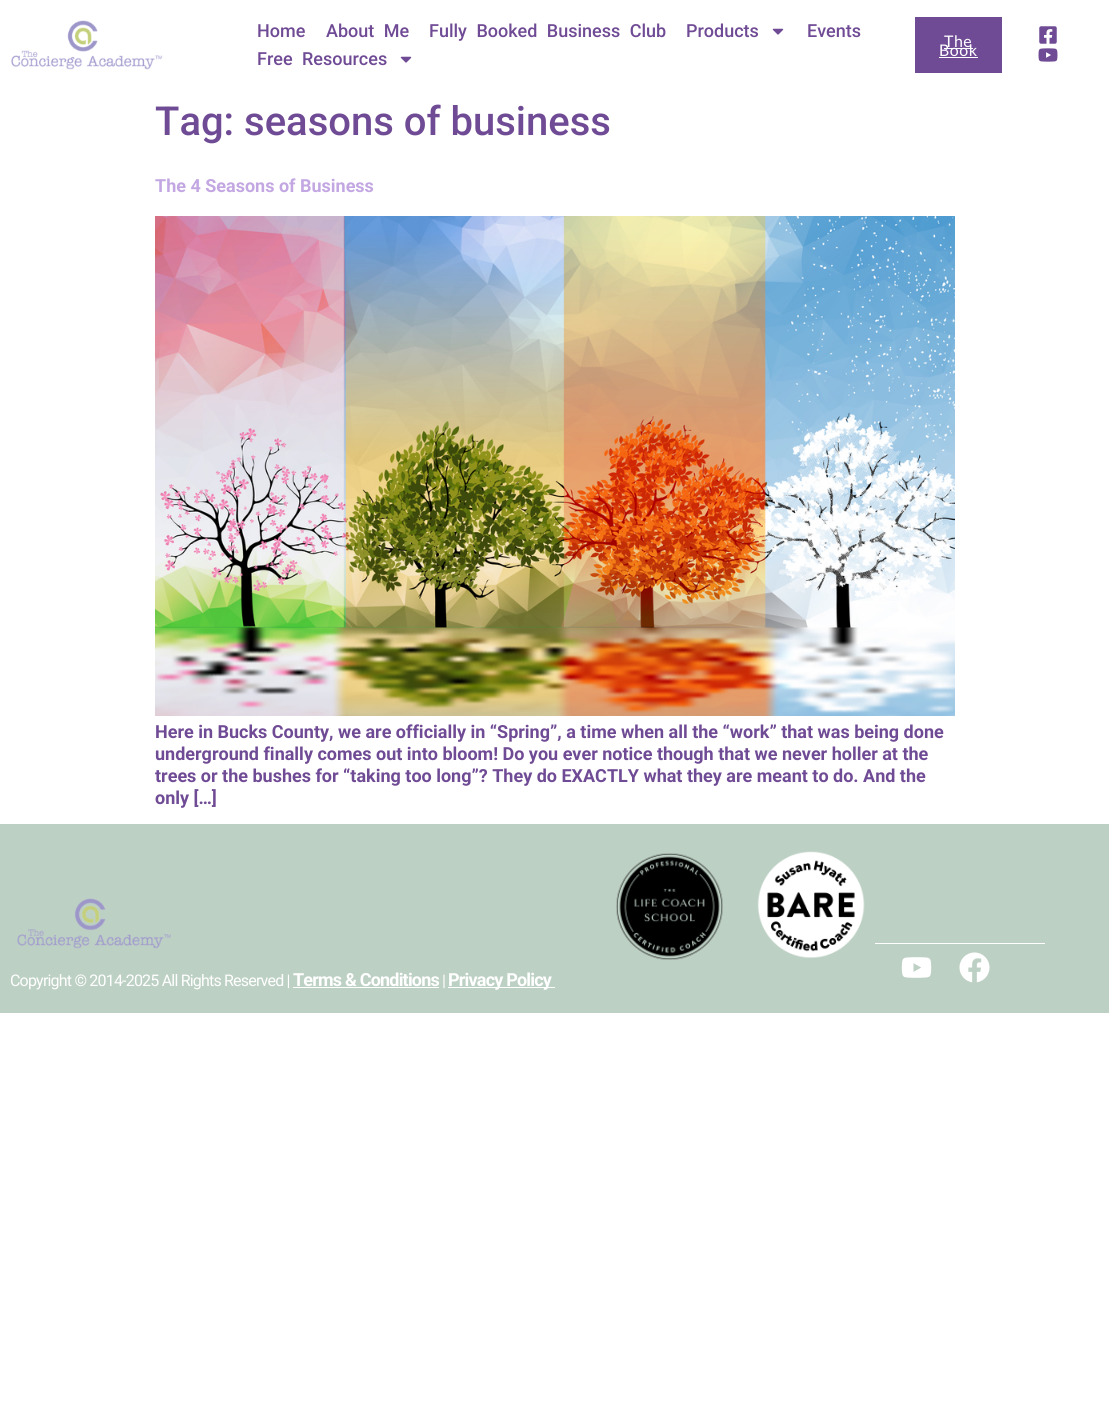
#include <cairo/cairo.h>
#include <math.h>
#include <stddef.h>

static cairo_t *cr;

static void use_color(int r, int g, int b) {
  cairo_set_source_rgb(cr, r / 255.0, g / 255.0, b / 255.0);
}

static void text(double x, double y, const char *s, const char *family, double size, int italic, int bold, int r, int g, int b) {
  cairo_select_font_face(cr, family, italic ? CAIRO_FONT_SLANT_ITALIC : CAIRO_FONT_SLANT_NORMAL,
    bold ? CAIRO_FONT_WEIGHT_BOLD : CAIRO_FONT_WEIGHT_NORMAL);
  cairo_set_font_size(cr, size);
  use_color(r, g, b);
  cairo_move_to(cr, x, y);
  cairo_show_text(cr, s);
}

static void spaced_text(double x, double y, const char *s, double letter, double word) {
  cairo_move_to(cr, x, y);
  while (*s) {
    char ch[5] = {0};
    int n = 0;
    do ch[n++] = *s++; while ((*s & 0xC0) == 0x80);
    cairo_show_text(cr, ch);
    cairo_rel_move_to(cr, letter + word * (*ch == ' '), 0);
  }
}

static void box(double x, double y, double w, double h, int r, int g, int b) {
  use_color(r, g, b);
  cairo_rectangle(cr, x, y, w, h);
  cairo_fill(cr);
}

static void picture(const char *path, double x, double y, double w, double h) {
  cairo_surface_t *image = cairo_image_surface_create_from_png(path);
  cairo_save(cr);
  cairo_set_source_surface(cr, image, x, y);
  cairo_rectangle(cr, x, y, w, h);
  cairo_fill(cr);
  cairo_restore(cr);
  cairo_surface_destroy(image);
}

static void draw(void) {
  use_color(255, 255, 255);
  cairo_paint(cr);
  picture("img_01.png", 11, 20, 152, 50);
  picture("img_02.png", 772, 28, 12, 7);
  picture("img_02.png", 400, 56, 12, 7);
  box(915, 17, 87, 56, 112, 75, 149);
  box(944, 48, 29, 1, 255, 255, 255);
  box(939, 57, 39, 1, 255, 255, 255);
  picture("img_03.png", 1039, 26, 18, 18);
  picture("img_04.png", 1038, 48, 20, 14);
  picture("img_05.png", 155, 216, 800, 500);
  box(0, 824, 1109, 189, 189, 208, 196);
  picture("img_06.png", 17, 898, 154, 51);
  box(293, 987, 146, 1, 255, 255, 255);
  box(448, 987, 107, 1, 255, 255, 255);
  picture("img_07.png", 616, 853, 107, 107);
  picture("img_08.png", 757, 851, 108, 107);
  box(875, 943, 170, 1, 255, 255, 255);
  picture("img_09.png", 901, 957, 31, 21);
  picture("img_10.png", 959, 952, 31, 31);
  text(257, 37, "Home", "Roboto Medium", 18, 0, 0, 112, 75, 149);
  spaced_text(326, 37, "About Me", 0, 5);
  spaced_text(429, 37, "Fully Booked Business Club", 0, 5);
  text(686, 37, "Products", "Roboto Medium", 18, 0, 0, 112, 75, 149);
  text(807, 37, "Events", "Roboto Medium", 18, 0, 0, 112, 75, 149);
  spaced_text(257, 65, "Free Resources", 0, 5);
  cairo_select_font_face(cr, "Lato", CAIRO_FONT_SLANT_NORMAL, CAIRO_FONT_WEIGHT_NORMAL);
  cairo_set_font_size(cr, 16);
  use_color(255, 255, 255);
  spaced_text(944, 47, "The", 0.5, 0);
  spaced_text(939, 56, "Book", 0.5, 0);
  text(155, 135, "Tag: seasons of business", "Roboto Medium", 40, 0, 0, 112, 75, 149);
  text(155, 192, "The 4 Seasons of Business", "Roboto", 18, 0, 1, 195, 167, 226);
  text(155, 738, "Here in Bucks County, we are officially in “Spring”, a time when all the “work” that was being done", "Roboto", 18, 0, 1, 112, 75, 149);
  text(155, 760, "underground finally comes out into bloom! Do you ever notice though that we never holler at the", "Roboto", 18, 0, 1, 112, 75, 149);
  text(155, 782, "trees or the bushes for “taking too long”? They do EXACTLY what they are meant to do. And the", "Roboto", 18, 0, 1, 112, 75, 149);
  text(155, 804, "only […]", "Roboto", 18, 0, 1, 112, 75, 149);
  cairo_select_font_face(cr, "Roboto", CAIRO_FONT_SLANT_NORMAL, CAIRO_FONT_WEIGHT_NORMAL);
  cairo_set_font_size(cr, 16);
  use_color(255, 255, 255);
  spaced_text(10, 986, "Copyright © 2014-2025 All Rights Reserved |", -0.8, 0);
  cairo_select_font_face(cr, "Roboto", CAIRO_FONT_SLANT_NORMAL, CAIRO_FONT_WEIGHT_BOLD);
  cairo_set_font_size(cr, 18);
  spaced_text(293, 986, "Terms & Conditions", -0.8, 0);
  cairo_select_font_face(cr, "Roboto", CAIRO_FONT_SLANT_NORMAL, CAIRO_FONT_WEIGHT_NORMAL);
  cairo_set_font_size(cr, 16);
  spaced_text(442, 986, "|", -0.8, 0);
  cairo_select_font_face(cr, "Roboto", CAIRO_FONT_SLANT_NORMAL, CAIRO_FONT_WEIGHT_BOLD);
  cairo_set_font_size(cr, 18);
  spaced_text(448, 986, "Privacy Policy", -0.8, 0);
}

int main(void) {
  cairo_surface_t *surface = cairo_image_surface_create(CAIRO_FORMAT_RGB24, 1109, 1411);
  cr = cairo_create(surface);
  cairo_font_options_t *options = cairo_font_options_create();
  cairo_font_options_set_hint_metrics(options, CAIRO_HINT_METRICS_OFF);
  cairo_font_options_set_hint_style(options, CAIRO_HINT_STYLE_NONE);
  cairo_set_font_options(cr, options);
  cairo_set_miter_limit(cr, 4);
  draw();
  cairo_surface_write_to_png(surface, "out.png");
  cairo_font_options_destroy(options);
  cairo_destroy(cr);
  cairo_surface_destroy(surface);
  return 0;
}
